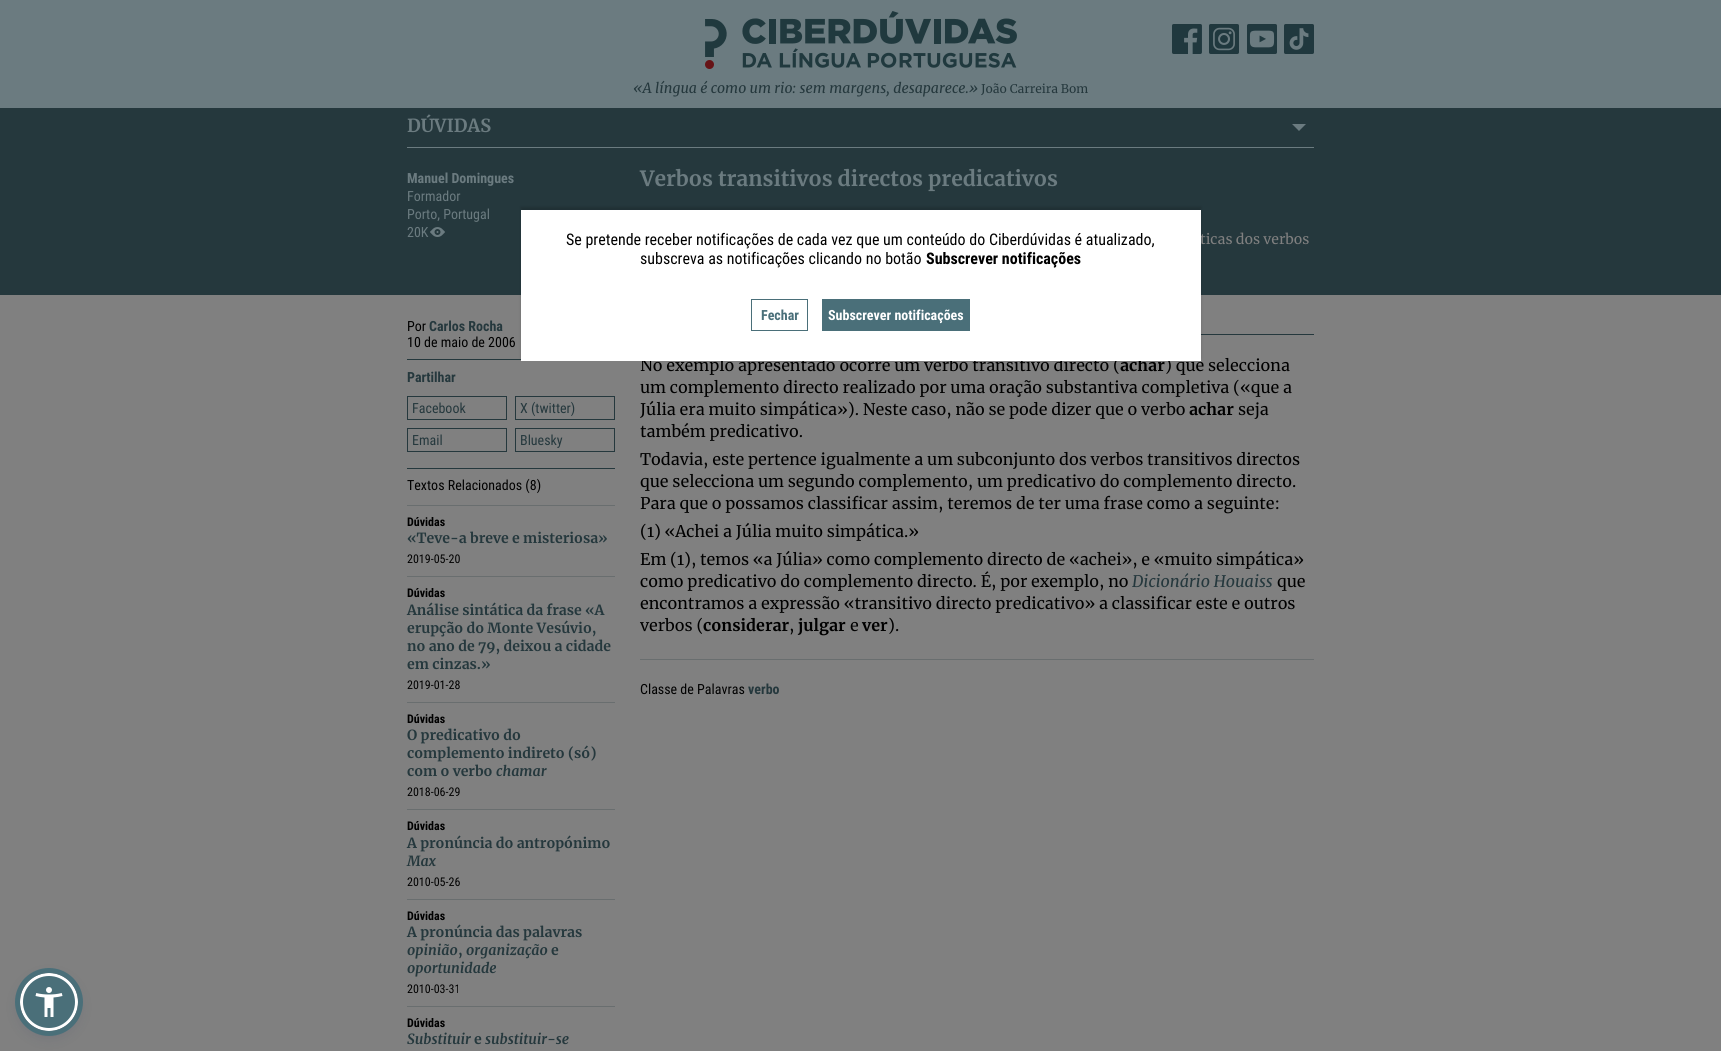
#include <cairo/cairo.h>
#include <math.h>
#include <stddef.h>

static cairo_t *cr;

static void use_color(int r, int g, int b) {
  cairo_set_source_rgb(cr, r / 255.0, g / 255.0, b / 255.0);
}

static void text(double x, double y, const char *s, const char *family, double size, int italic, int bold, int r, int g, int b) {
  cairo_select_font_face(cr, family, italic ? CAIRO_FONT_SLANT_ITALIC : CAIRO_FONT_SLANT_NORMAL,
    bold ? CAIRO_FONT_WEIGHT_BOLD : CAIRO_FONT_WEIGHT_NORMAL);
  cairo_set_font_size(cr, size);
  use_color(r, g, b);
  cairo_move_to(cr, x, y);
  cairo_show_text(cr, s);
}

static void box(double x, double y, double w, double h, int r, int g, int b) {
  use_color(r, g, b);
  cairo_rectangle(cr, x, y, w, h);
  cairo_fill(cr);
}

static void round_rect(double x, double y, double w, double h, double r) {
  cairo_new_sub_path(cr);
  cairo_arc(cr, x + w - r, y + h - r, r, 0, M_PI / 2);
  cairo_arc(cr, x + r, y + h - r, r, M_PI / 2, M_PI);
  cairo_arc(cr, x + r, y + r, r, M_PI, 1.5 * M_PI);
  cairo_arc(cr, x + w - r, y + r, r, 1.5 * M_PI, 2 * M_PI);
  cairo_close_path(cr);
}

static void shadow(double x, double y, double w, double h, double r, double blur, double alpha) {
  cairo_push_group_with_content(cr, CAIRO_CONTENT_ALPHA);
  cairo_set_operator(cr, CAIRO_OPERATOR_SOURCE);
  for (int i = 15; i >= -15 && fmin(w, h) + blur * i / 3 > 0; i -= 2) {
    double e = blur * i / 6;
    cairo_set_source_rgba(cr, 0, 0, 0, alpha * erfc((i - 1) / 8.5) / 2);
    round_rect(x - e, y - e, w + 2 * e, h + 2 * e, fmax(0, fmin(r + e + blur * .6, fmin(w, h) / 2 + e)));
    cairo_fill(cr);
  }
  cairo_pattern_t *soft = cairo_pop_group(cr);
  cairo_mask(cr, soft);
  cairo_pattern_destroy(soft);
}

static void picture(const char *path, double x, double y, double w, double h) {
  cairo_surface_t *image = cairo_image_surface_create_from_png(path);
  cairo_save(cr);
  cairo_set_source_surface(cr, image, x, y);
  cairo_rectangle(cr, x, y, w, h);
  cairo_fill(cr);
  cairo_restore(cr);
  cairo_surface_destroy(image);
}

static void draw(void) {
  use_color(128, 128, 128);
  cairo_paint(cr);
  use_color(37, 44, 97);
  shadow(20, 978, 58, 58, 29, 7.5, 0.15);
  use_color(74, 111, 121);
  cairo_arc(cr, 49, 1002, 27.5, 0, 2 * M_PI);
  cairo_fill_preserve(cr);
  use_color(255, 255, 255);
  cairo_set_line_width(cr, 3);
  cairo_stroke(cr);
  cairo_arc(cr, 49, 1002, 31.5, 0, 2 * M_PI);
  use_color(74, 111, 121);
  cairo_set_line_width(cr, 5);
  cairo_stroke(cr);
  picture("img_01.png", 35, 987, 28, 30);
  box(0, 0, 1721, 108, 107, 123, 128);
  picture("img_02.png", 705, 11, 312, 58);
  picture("img_03.png", 1172, 24, 30, 30);
  picture("img_04.png", 1209, 24, 30, 30);
  picture("img_05.png", 1247, 24, 30, 30);
  picture("img_06.png", 1284, 24, 30, 30);
  box(0, 108, 1721, 187, 37, 56, 61);
  box(407, 147, 907, 1, 107, 123, 128);
  cairo_new_path(cr);
  cairo_move_to(cr, 1292, 124);
  cairo_line_to(cr, 1306, 124);
  cairo_line_to(cr, 1299, 131);
  cairo_close_path(cr);
  cairo_fill(cr);
  picture("img_07.png", 430, 227, 15, 10);
  box(407, 359, 114, 1, 37, 56, 61);
  cairo_rectangle(cr, 407.5, 396.5, 99, 23);
  cairo_set_line_width(cr, 1);
  cairo_stroke(cr);
  cairo_rectangle(cr, 515.5, 396.5, 99, 23);
  cairo_stroke(cr);
  cairo_rectangle(cr, 407.5, 428.5, 99, 23);
  cairo_stroke(cr);
  cairo_rectangle(cr, 515.5, 428.5, 99, 23);
  cairo_stroke(cr);
  box(407, 468, 208, 1, 37, 56, 61);
  box(407, 505, 208, 1, 105, 110, 111);
  box(407, 576, 208, 1, 105, 110, 111);
  box(407, 702, 208, 1, 105, 110, 111);
  box(407, 809, 208, 1, 105, 110, 111);
  box(407, 899, 208, 1, 105, 110, 111);
  box(407, 1006, 208, 1, 105, 110, 111);
  box(1201, 334, 113, 1, 37, 56, 61);
  box(640, 659, 674, 1, 105, 110, 111);
  use_color(0, 0, 0);
  shadow(521, 207, 680, 151, 0, 1.5, 0.15);
  text(633, 93, "«A língua é como um rio: sem margens, desaparece.»", "Merriweather", 14, 1, 0, 37, 56, 61);
  text(981, 93, "João Carreira Bom", "Merriweather", 12, 0, 0, 37, 56, 61);
  text(407, 132, "DÚVIDAS", "Merriweather", 18, 0, 1, 107, 123, 128);
  text(407, 183, "Manuel Domingues", "Roboto Condensed", 14, 0, 1, 107, 123, 128);
  text(407, 201, "Formador", "Roboto Condensed", 14, 0, 0, 107, 123, 128);
  text(407, 219, "Porto, Portugal", "Roboto Condensed", 14, 0, 0, 107, 123, 128);
  text(407, 237, "20K", "Roboto Condensed", 14, 0, 0, 107, 123, 128);
  text(640, 186, "Verbos transitivos directos predicativos", "Merriweather", 21, 0, 1, 107, 123, 128);
  text(1200, 244, "ticas dos verbos", "Merriweather", 14, 0, 0, 128, 128, 128);
  text(407, 331, "Por", "Roboto Condensed", 14, 0, 0, 0, 0, 0);
  text(429, 331, "Carlos Rocha", "Roboto Condensed", 14, 0, 1, 37, 56, 61);
  text(407, 347, "10 de maio de 2006", "Roboto Condensed", 14, 0, 0, 0, 0, 0);
  text(407, 382, "Partilhar", "Roboto Condensed", 14, 0, 1, 37, 56, 61);
  text(412, 413, "Facebook", "Roboto Condensed", 14, 0, 0, 37, 56, 61);
  text(520, 413, "X (twitter)", "Roboto Condensed", 14, 0, 0, 37, 56, 61);
  text(412, 445, "Email", "Roboto Condensed", 14, 0, 0, 37, 56, 61);
  text(520, 445, "Bluesky", "Roboto Condensed", 14, 0, 0, 37, 56, 61);
  text(407, 490, "Textos Relacionados (8)", "Roboto Condensed", 14, 0, 0, 0, 0, 0);
  text(407, 526, "Dúvidas", "Roboto Condensed", 12, 0, 1, 0, 0, 0);
  text(407, 543, "«Teve-a breve e misteriosa»", "Merriweather", 14, 0, 1, 37, 56, 61);
  text(407, 563, "2019-05-20", "Roboto Condensed", 12, 0, 0, 0, 0, 0);
  text(407, 597, "Dúvidas", "Roboto Condensed", 12, 0, 1, 0, 0, 0);
  text(407, 615, "Análise sintática da frase «A", "Merriweather", 14, 0, 1, 37, 56, 61);
  text(407, 633, "erupção do Monte Vesúvio,", "Merriweather", 14, 0, 1, 37, 56, 61);
  text(407, 651, "no ano de 79, deixou a cidade", "Merriweather", 14, 0, 1, 37, 56, 61);
  text(407, 669, "em cinzas.»", "Merriweather", 14, 0, 1, 37, 56, 61);
  text(407, 689, "2019-01-28", "Roboto Condensed", 12, 0, 0, 0, 0, 0);
  text(407, 723, "Dúvidas", "Roboto Condensed", 12, 0, 1, 0, 0, 0);
  text(407, 740, "O predicativo do", "Merriweather", 14, 0, 1, 37, 56, 61);
  text(407, 758, "complemento indireto (só)", "Merriweather", 14, 0, 1, 37, 56, 61);
  text(407, 776, "com o verbo", "Merriweather", 14, 0, 1, 37, 56, 61);
  text(496, 776, "chamar", "Merriweather", 14, 1, 1, 37, 56, 61);
  text(407, 796, "2018-06-29", "Roboto Condensed", 12, 0, 0, 0, 0, 0);
  text(407, 830, "Dúvidas", "Roboto Condensed", 12, 0, 1, 0, 0, 0);
  text(407, 848, "A pronúncia do antropónimo", "Merriweather", 14, 0, 1, 37, 56, 61);
  text(407, 866, "Max", "Merriweather", 14, 1, 1, 37, 56, 61);
  text(407, 886, "2010-05-26", "Roboto Condensed", 12, 0, 0, 0, 0, 0);
  text(407, 920, "Dúvidas", "Roboto Condensed", 12, 0, 1, 0, 0, 0);
  text(407, 937, "A pronúncia das palavras", "Merriweather", 14, 0, 1, 37, 56, 61);
  text(407, 955, "opinião", "Merriweather", 14, 1, 1, 37, 56, 61);
  text(458, 955, ",", "Merriweather", 14, 0, 1, 37, 56, 61);
  text(466, 955, "organização", "Merriweather", 14, 1, 1, 37, 56, 61);
  text(551, 955, "e", "Merriweather", 14, 0, 1, 37, 56, 61);
  text(407, 973, "oportunidade", "Merriweather", 14, 1, 1, 37, 56, 61);
  text(407, 993, "2010-03-31", "Roboto Condensed", 12, 0, 0, 0, 0, 0);
  text(407, 1027, "Dúvidas", "Roboto Condensed", 12, 0, 1, 0, 0, 0);
  text(407, 1044, "Substituir", "Merriweather", 14, 1, 1, 37, 56, 61);
  text(474, 1044, "e", "Merriweather", 14, 0, 1, 37, 56, 61);
  text(485, 1044, "substituir-se", "Merriweather", 14, 1, 1, 37, 56, 61);
  text(640, 371, "No exemplo apresentado ocorre um verbo transitivo directo (", "Merriweather", 16, 0, 0, 0, 0, 0);
  text(1120, 371, "achar", "Merriweather", 16, 0, 1, 0, 0, 0);
  text(1165, 371, ") que selecciona", "Merriweather", 16, 0, 0, 0, 0, 0);
  text(640, 393, "um complemento directo realizado por uma oração substantiva completiva («que a", "Merriweather", 16, 0, 0, 0, 0, 0);
  text(640, 415, "Júlia era muito simpática»). Neste caso, não se pode dizer que o verbo", "Merriweather", 16, 0, 0, 0, 0, 0);
  text(1189, 415, "achar", "Merriweather", 16, 0, 1, 0, 0, 0);
  text(1238, 415, "seja", "Merriweather", 16, 0, 0, 0, 0, 0);
  text(640, 437, "também predicativo.", "Merriweather", 16, 0, 0, 0, 0, 0);
  text(640, 465, "Todavia, este pertence igualmente a um subconjunto dos verbos transitivos directos", "Merriweather", 16, 0, 0, 0, 0, 0);
  text(640, 487, "que selecciona um segundo complemento, um predicativo do complemento directo.", "Merriweather", 16, 0, 0, 0, 0, 0);
  text(640, 509, "Para que o possamos classificar assim, teremos de ter uma frase como a seguinte:", "Merriweather", 16, 0, 0, 0, 0, 0);
  text(640, 537, "(1) «Achei a Júlia muito simpática.»", "Merriweather", 16, 0, 0, 0, 0, 0);
  text(640, 565, "Em (1), temos «a Júlia» como complemento directo de «achei», e «muito simpática»", "Merriweather", 16, 0, 0, 0, 0, 0);
  text(640, 587, "como predicativo do complemento directo. É, por exemplo, no", "Merriweather", 16, 0, 0, 0, 0, 0);
  text(1132, 587, "Dicionário Houaiss", "Merriweather", 16, 1, 0, 37, 56, 61);
  text(1277, 587, "que", "Merriweather", 16, 0, 0, 0, 0, 0);
  text(640, 609, "encontramos a expressão «transitivo directo predicativo» a classificar este e outros", "Merriweather", 16, 0, 0, 0, 0, 0);
  text(640, 631, "verbos (", "Merriweather", 16, 0, 0, 0, 0, 0);
  text(703, 631, "considerar", "Merriweather", 16, 0, 1, 0, 0, 0);
  text(789, 631, ",", "Merriweather", 16, 0, 0, 0, 0, 0);
  text(798, 631, "julgar", "Merriweather", 16, 0, 1, 0, 0, 0);
  text(850, 631, "e", "Merriweather", 16, 0, 0, 0, 0, 0);
  text(862, 631, "ver", "Merriweather", 16, 0, 1, 0, 0, 0);
  text(888, 631, ").", "Merriweather", 16, 0, 0, 0, 0, 0);
  text(640, 694, "Classe de Palavras", "Roboto Condensed", 14, 0, 0, 0, 0, 0);
  text(748, 694, "verbo", "Roboto Condensed", 14, 0, 1, 37, 56, 61);
  box(521, 210, 680, 151, 255, 255, 255);
  text(566, 245, "Se pretende receber notificações de cada vez que um conteúdo do Ciberdúvidas é atualizado,", "Roboto Condensed", 16, 0, 0, 0, 0, 0);
  text(640, 264, "subscreva as notificações clicando no botão", "Roboto Condensed", 16, 0, 0, 0, 0, 0);
  text(926, 264, "Subscrever notificações", "Roboto Condensed", 16, 0, 1, 0, 0, 0);
  cairo_rectangle(cr, 751.5, 299.5, 56, 31);
  use_color(74, 111, 121);
  cairo_stroke(cr);
  text(761, 320, "Fechar", "Roboto Condensed", 14, 0, 1, 74, 111, 121);
  box(822, 299, 148, 32, 74, 111, 121);
  text(828, 320, "Subscrever notificações", "Roboto Condensed", 14, 0, 1, 255, 255, 255);
}

int main(void) {
  cairo_surface_t *surface = cairo_image_surface_create(CAIRO_FORMAT_RGB24, 1721, 1051);
  cr = cairo_create(surface);
  cairo_font_options_t *options = cairo_font_options_create();
  cairo_font_options_set_hint_metrics(options, CAIRO_HINT_METRICS_OFF);
  cairo_font_options_set_hint_style(options, CAIRO_HINT_STYLE_NONE);
  cairo_set_font_options(cr, options);
  cairo_set_miter_limit(cr, 4);
  draw();
  cairo_surface_write_to_png(surface, "out.png");
  cairo_font_options_destroy(options);
  cairo_destroy(cr);
  cairo_surface_destroy(surface);
  return 0;
}
